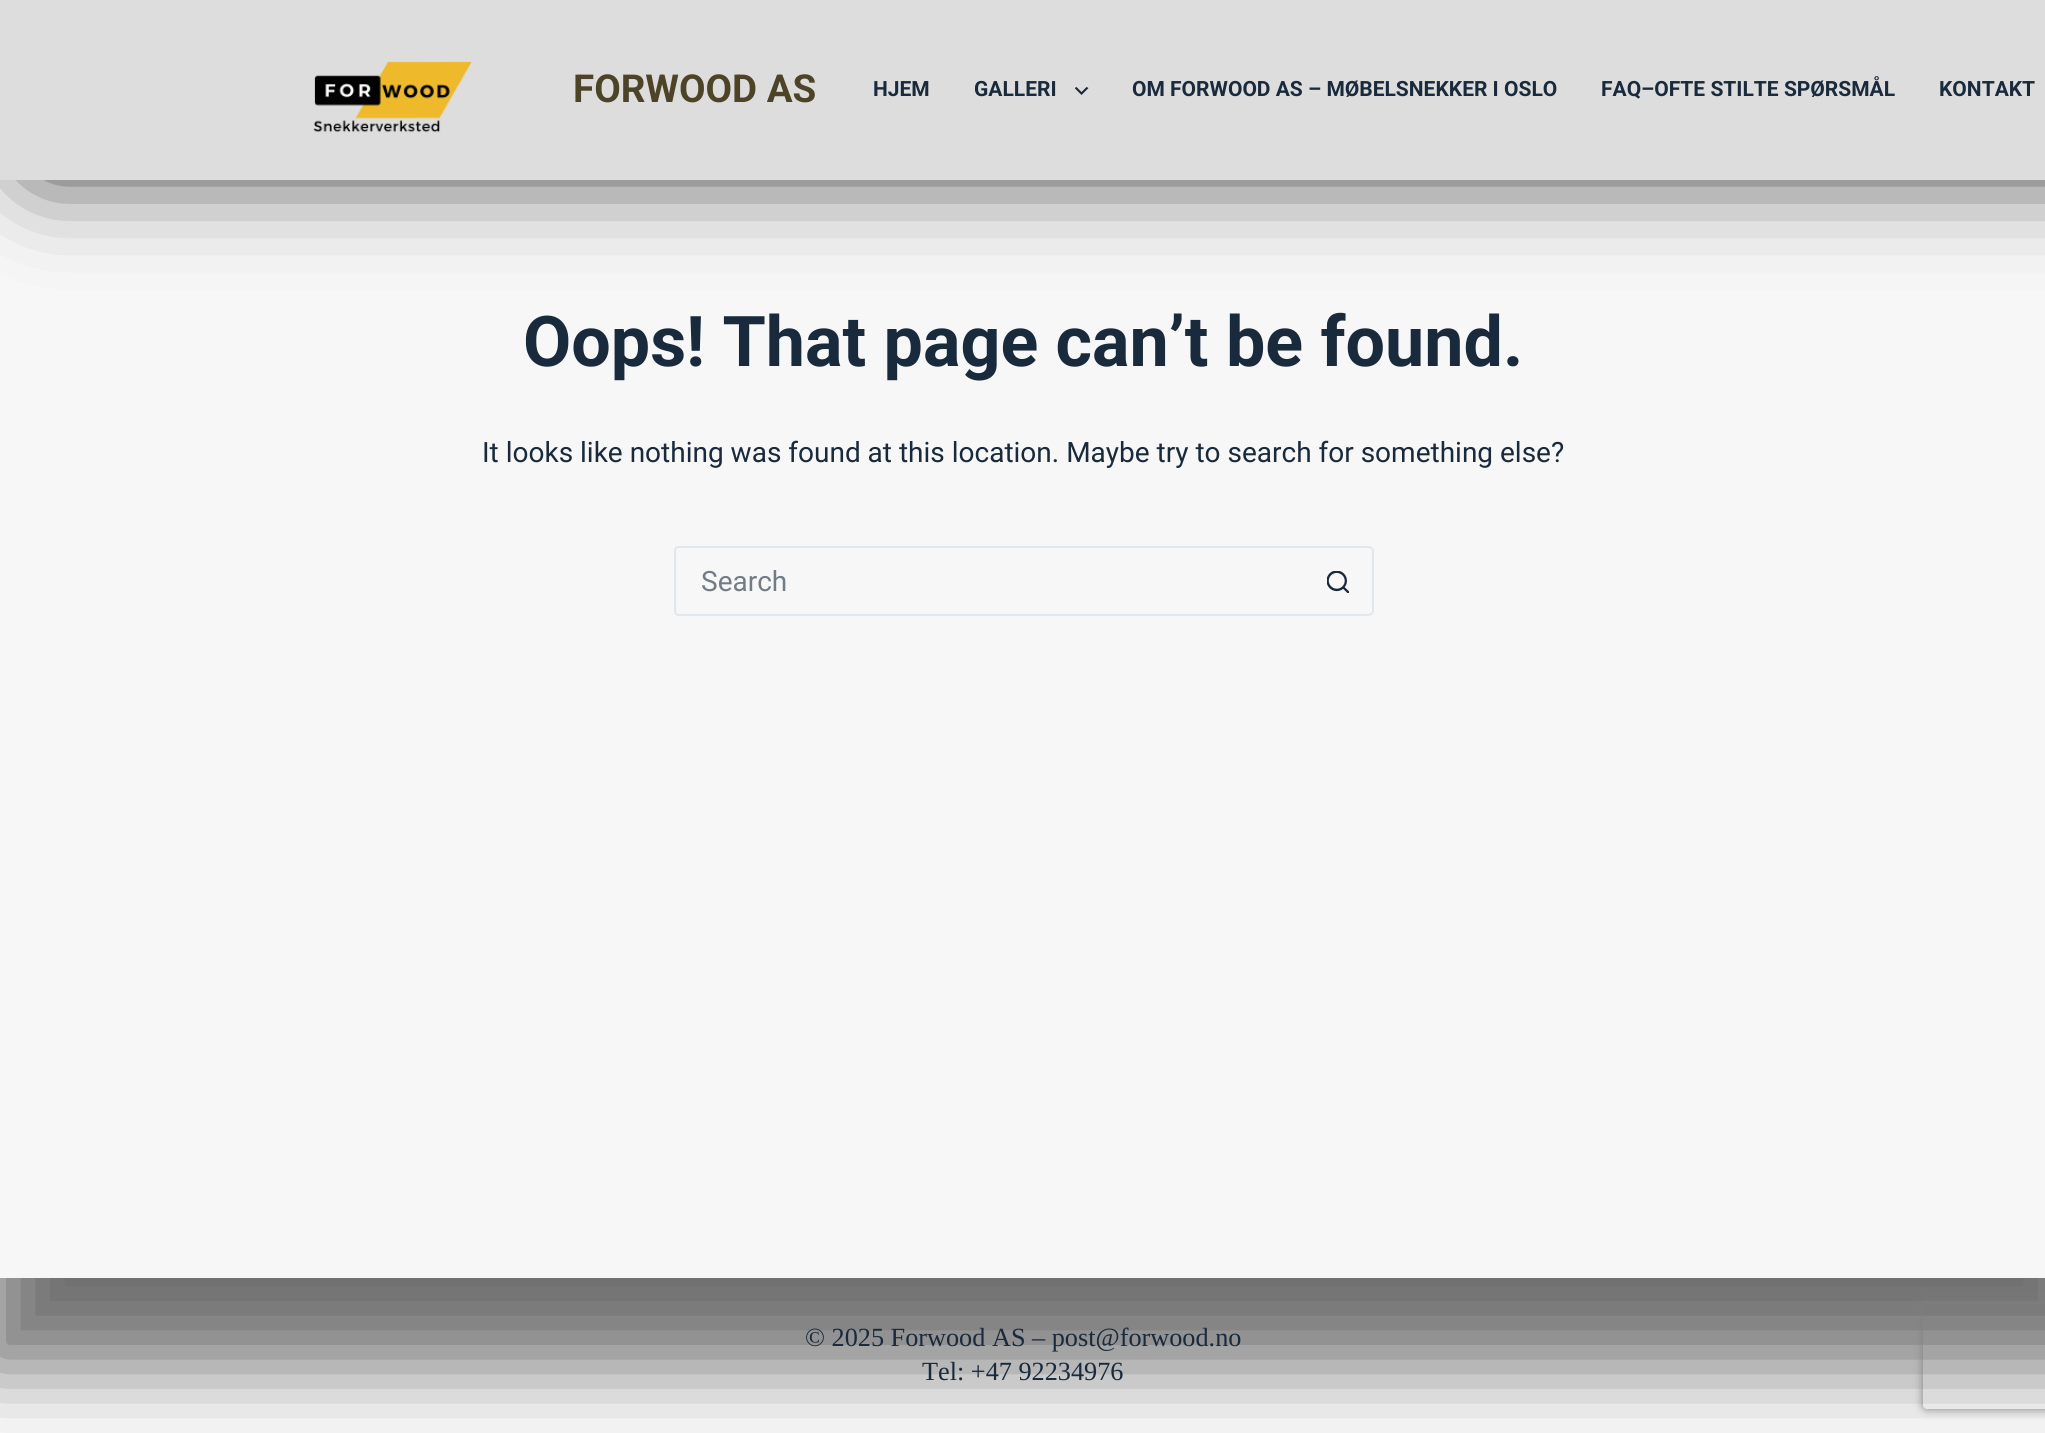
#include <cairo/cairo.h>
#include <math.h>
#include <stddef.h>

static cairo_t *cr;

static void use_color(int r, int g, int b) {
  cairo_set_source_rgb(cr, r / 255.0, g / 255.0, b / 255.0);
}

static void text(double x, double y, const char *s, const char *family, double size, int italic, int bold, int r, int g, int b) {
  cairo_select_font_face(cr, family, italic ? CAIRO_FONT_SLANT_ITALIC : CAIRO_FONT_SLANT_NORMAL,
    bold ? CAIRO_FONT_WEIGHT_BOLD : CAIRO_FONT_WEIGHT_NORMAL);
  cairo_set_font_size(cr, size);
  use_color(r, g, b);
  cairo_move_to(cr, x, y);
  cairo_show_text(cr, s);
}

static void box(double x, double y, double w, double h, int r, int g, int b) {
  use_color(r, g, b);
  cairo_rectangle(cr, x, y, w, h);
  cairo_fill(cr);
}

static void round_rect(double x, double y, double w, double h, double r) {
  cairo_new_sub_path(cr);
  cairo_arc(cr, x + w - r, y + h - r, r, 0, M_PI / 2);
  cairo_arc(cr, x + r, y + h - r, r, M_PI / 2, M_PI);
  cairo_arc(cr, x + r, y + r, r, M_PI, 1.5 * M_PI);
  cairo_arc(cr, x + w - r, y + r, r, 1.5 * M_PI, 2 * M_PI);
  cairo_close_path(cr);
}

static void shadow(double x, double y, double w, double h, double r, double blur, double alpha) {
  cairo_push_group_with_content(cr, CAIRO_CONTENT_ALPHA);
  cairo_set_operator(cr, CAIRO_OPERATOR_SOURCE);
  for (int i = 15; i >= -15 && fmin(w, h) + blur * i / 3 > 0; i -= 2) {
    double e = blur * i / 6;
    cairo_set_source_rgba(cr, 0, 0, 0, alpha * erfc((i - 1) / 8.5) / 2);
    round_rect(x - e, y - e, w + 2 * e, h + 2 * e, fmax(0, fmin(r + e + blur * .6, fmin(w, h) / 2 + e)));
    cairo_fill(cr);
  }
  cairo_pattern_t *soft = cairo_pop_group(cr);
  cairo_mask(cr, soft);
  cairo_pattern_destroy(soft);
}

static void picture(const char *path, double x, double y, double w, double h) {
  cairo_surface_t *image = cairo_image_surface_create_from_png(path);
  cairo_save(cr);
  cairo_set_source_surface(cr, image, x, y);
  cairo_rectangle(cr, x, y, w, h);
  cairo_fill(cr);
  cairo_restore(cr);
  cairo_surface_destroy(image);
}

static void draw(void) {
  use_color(255, 255, 255);
  cairo_paint(cr);
  use_color(0, 0, 0);
  shadow(-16, 196, 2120, 1171, 0, 44, 0.57);
  box(0, 180, 2045, 1098, 247, 247, 247);
  use_color(0, 0, 0);
  shadow(39, -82, 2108, 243, 0, 51.5, 1);
  box(0, 0, 2045, 180, 221, 221, 221);
  picture("img_01.png", 313, 61, 160, 72);
  picture("img_02.png", 1075, 87, 14, 8);
  use_color(225, 232, 237);
  cairo_set_fill_rule(cr, CAIRO_FILL_RULE_EVEN_ODD);
  cairo_new_path(cr);
  cairo_move_to(cr, 679, 546);
  cairo_line_to(cr, 1304, 546);
  cairo_line_to(cr, 1304, 616);
  cairo_line_to(cr, 679, 616);
  cairo_curve_to(cr, 676, 616, 674, 614, 674, 611);
  cairo_line_to(cr, 674, 551);
  cairo_curve_to(cr, 674, 548, 676, 546, 679, 546);
  cairo_close_path(cr);
  cairo_move_to(cr, 679, 548);
  cairo_line_to(cr, 1304, 548);
  cairo_line_to(cr, 1304, 614);
  cairo_line_to(cr, 679, 614);
  cairo_curve_to(cr, 677, 614, 676, 613, 676, 611);
  cairo_line_to(cr, 676, 551);
  cairo_curve_to(cr, 676, 549, 677, 548, 679, 548);
  cairo_close_path(cr);
  cairo_fill(cr);
  cairo_new_path(cr);
  cairo_move_to(cr, 1304, 546);
  cairo_line_to(cr, 1368, 546);
  cairo_curve_to(cr, 1371, 546, 1374, 548, 1374, 551);
  cairo_line_to(cr, 1374, 611);
  cairo_curve_to(cr, 1374, 614, 1371, 616, 1368, 616);
  cairo_line_to(cr, 1304, 616);
  cairo_close_path(cr);
  cairo_move_to(cr, 1304, 548);
  cairo_line_to(cr, 1368, 548);
  cairo_curve_to(cr, 1370, 548, 1372, 549, 1372, 551);
  cairo_line_to(cr, 1372, 611);
  cairo_curve_to(cr, 1372, 613, 1370, 614, 1368, 614);
  cairo_line_to(cr, 1304, 614);
  cairo_close_path(cr);
  cairo_fill(cr);
  picture("img_03.png", 1327, 571, 22, 22);
  cairo_save(cr);
  cairo_new_path(cr);
  cairo_move_to(cr, 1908, 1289);
  cairo_line_to(cr, 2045, 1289);
  cairo_line_to(cr, 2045, 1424);
  cairo_line_to(cr, 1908, 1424);
  cairo_close_path(cr);
  cairo_move_to(cr, 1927, 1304);
  cairo_line_to(cr, 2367, 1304);
  cairo_curve_to(cr, 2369, 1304, 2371, 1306, 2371, 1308);
  cairo_line_to(cr, 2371, 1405);
  cairo_curve_to(cr, 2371, 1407, 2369, 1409, 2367, 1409);
  cairo_line_to(cr, 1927, 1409);
  cairo_curve_to(cr, 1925, 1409, 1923, 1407, 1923, 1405);
  cairo_line_to(cr, 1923, 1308);
  cairo_curve_to(cr, 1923, 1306, 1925, 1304, 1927, 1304);
  cairo_close_path(cr);
  cairo_clip(cr);
  use_color(128, 128, 128);
  shadow(1923, 1304, 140, 105, 4, 4.5, 1);
  cairo_restore(cr);
  text(573, 102, "FORWOOD AS", "Roboto", 38.5, 0, 1, 77, 67, 38);
  text(873, 96, "HJEM", "Roboto", 21, 0, 1, 25, 42, 61);
  text(974, 96, "GALLERI", "Roboto", 21, 0, 1, 25, 42, 61);
  text(1132, 96, "OM FORWOOD AS – MØBELSNEKKER I OSLO", "Roboto", 21, 0, 1, 25, 42, 61);
  text(1601, 96, "FAQ–OFTE STILTE SPØRSMÅL", "Roboto", 21, 0, 1, 25, 42, 61);
  text(1939, 96, "KONTAKT", "Roboto", 21, 0, 1, 25, 42, 61);
  text(523, 366, "Oops! That page can’t be found.", "Roboto", 70, 0, 1, 25, 42, 61);
  text(482, 462, "It looks like nothing was found at this location. Maybe try to search for something else?", "Roboto", 28, 0, 0, 25, 42, 61);
  text(701, 591, "Search", "Roboto", 28, 0, 0, 114, 124, 135);
  text(805, 1346, "© 2025 Forwood AS – post@forwood.no", "Liberation Serif", 26.25, 0, 0, 25, 42, 61);
  text(922, 1380, "Tel: +47 92234976", "Liberation Serif", 26.25, 0, 0, 25, 42, 61);
}

int main(void) {
  cairo_surface_t *surface = cairo_image_surface_create(CAIRO_FORMAT_RGB24, 2045, 1433);
  cr = cairo_create(surface);
  cairo_font_options_t *options = cairo_font_options_create();
  cairo_font_options_set_hint_metrics(options, CAIRO_HINT_METRICS_OFF);
  cairo_font_options_set_hint_style(options, CAIRO_HINT_STYLE_NONE);
  cairo_set_font_options(cr, options);
  cairo_set_miter_limit(cr, 4);
  draw();
  cairo_surface_write_to_png(surface, "out.png");
  cairo_font_options_destroy(options);
  cairo_destroy(cr);
  cairo_surface_destroy(surface);
  return 0;
}
